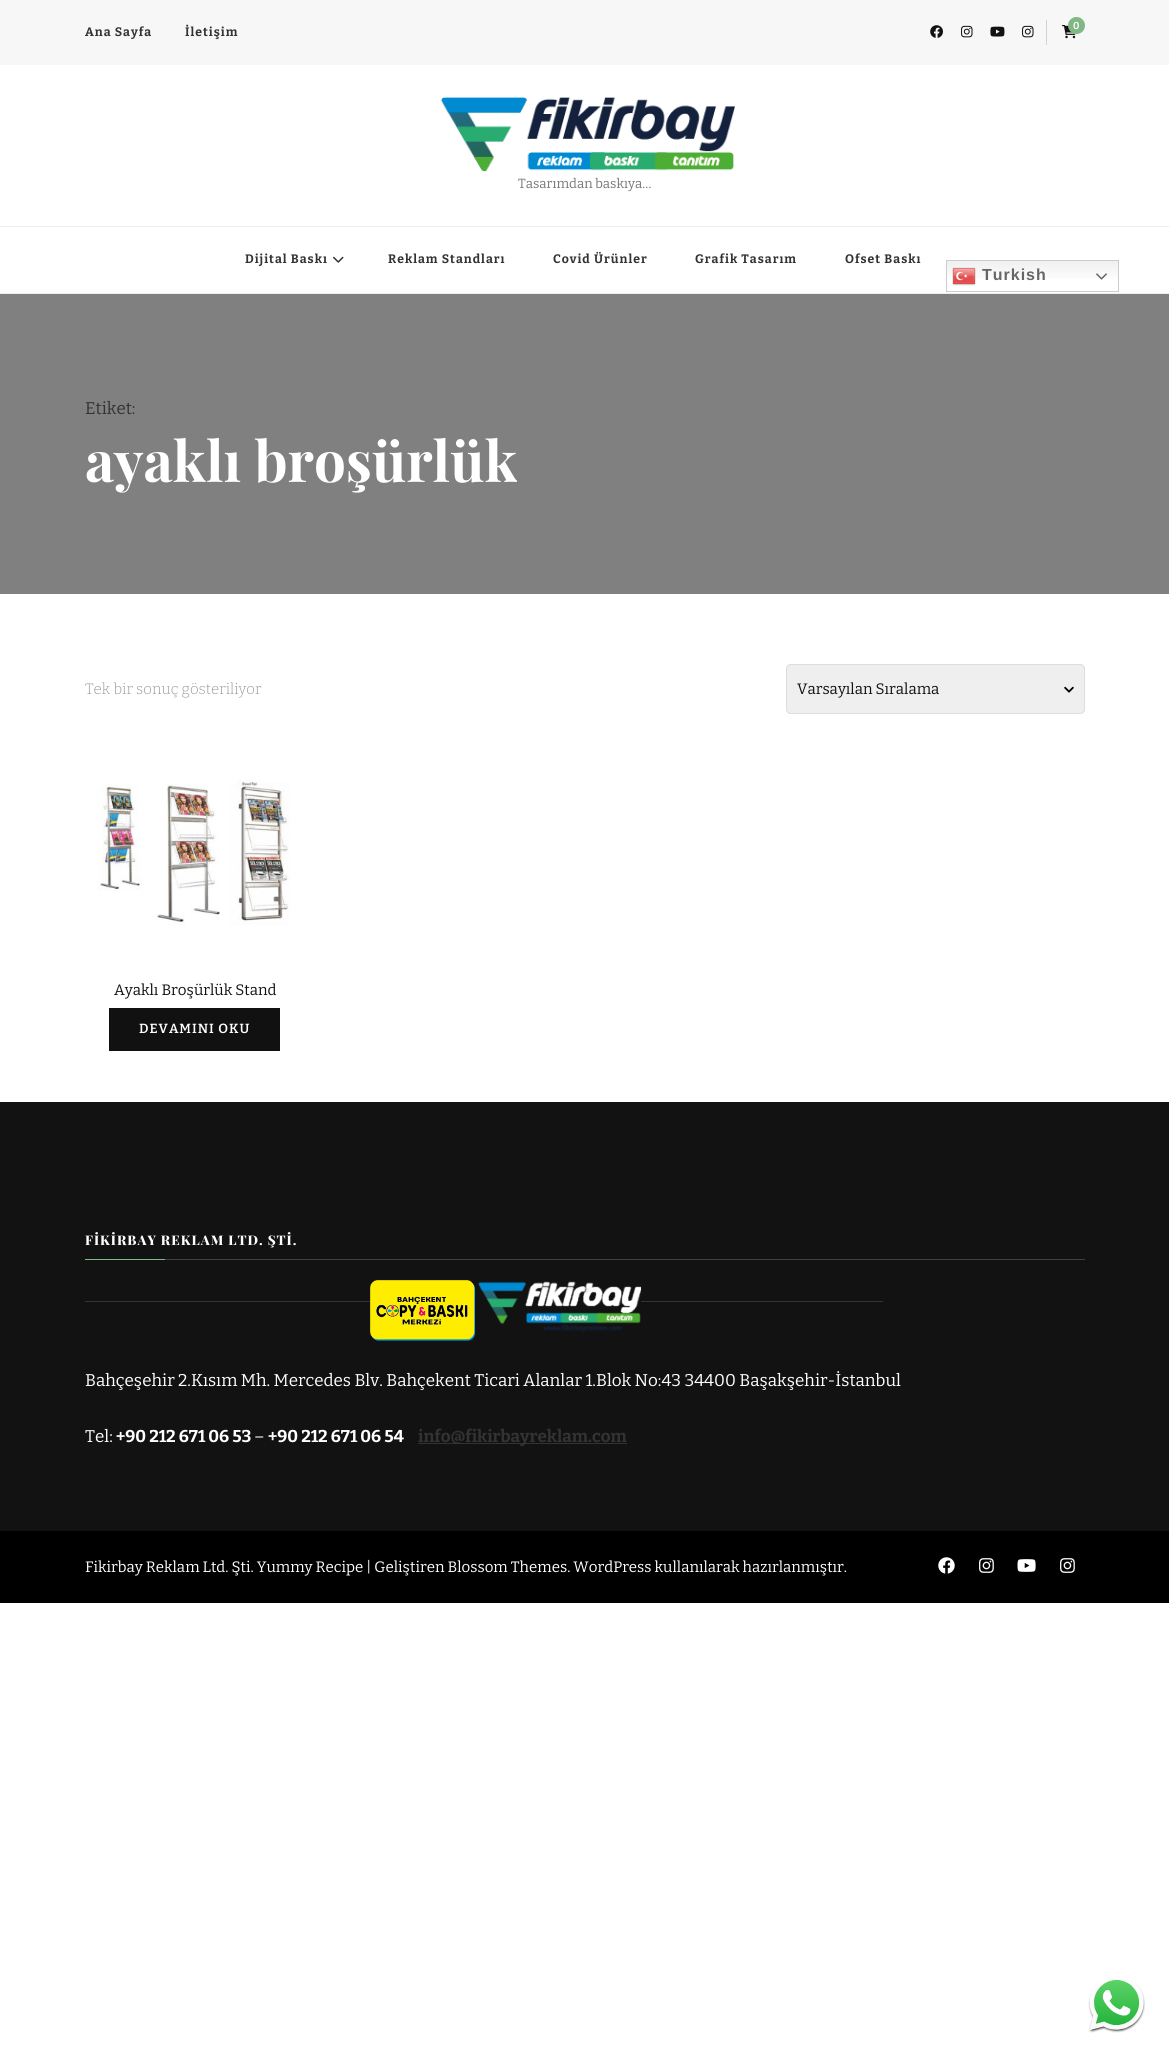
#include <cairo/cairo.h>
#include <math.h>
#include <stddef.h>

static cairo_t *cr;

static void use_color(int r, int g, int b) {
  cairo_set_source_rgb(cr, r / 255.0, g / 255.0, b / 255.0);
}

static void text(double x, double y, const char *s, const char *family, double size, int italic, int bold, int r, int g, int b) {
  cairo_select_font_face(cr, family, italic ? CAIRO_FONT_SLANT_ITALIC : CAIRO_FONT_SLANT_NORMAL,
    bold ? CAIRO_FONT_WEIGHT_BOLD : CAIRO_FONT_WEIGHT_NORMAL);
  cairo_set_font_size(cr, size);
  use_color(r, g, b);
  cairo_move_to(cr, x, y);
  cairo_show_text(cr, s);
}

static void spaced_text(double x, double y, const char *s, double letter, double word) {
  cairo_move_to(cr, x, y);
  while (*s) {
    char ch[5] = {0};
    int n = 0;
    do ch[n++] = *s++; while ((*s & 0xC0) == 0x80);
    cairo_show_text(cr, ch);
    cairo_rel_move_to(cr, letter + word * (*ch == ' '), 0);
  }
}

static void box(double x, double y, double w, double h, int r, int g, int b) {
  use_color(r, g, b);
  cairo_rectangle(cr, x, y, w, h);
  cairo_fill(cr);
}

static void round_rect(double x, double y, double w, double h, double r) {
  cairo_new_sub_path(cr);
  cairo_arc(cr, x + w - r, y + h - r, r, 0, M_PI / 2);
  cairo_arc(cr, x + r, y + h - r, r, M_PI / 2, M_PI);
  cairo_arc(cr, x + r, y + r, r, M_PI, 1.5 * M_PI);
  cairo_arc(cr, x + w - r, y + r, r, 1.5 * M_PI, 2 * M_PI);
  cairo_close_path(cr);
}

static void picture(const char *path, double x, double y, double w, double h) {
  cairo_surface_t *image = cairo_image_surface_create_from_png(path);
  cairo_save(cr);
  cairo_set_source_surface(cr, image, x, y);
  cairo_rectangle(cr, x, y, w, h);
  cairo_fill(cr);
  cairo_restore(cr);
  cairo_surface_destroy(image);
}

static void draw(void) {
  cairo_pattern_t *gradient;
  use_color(255, 255, 255);
  cairo_paint(cr);
  box(0, 0, 1169, 65, 247, 247, 247);
  picture("img_01.png", 930, 25, 13, 13);
  picture("img_02.png", 961, 25, 12, 13);
  picture("img_03.png", 990, 26, 15, 11);
  picture("img_02.png", 1022, 25, 12, 13);
  box(1046, 20, 1, 25, 210, 210, 210);
  picture("img_04.png", 1062, 25, 14, 14);
  use_color(128, 183, 132);
  cairo_arc(cr, 1076.5, 25.5, 8.5, 0, 2 * M_PI);
  cairo_fill(cr);
  picture("img_05.png", 440, 97, 295, 75);
  box(0, 226, 1169, 1, 237, 237, 237);
  box(0, 293, 1169, 1, 237, 237, 237);
  picture("img_06.png", 333, 256, 11, 7);
  gradient = cairo_pattern_create_linear(1033, 260, 1033, 292);
  cairo_pattern_add_color_stop_rgba(gradient, 0, 0.937, 0.937, 0.937, 1);
  cairo_pattern_add_color_stop_rgba(gradient, 0.7, 1, 1, 1, 1);
  cairo_set_source(cr, gradient);
  cairo_pattern_destroy(gradient);
  cairo_rectangle(cr, 947, 261, 171, 18);
  cairo_fill(cr);
  cairo_rectangle(cr, 946.5, 260.5, 172, 31);
  use_color(204, 204, 204);
  cairo_set_line_width(cr, 1);
  cairo_stroke(cr);
  picture("img_07.png", 952, 267, 24, 19);
  picture("img_08.png", 1096, 273, 11, 7);
  box(0, 294, 1169, 300, 128, 128, 128);
  use_color(239, 239, 239);
  round_rect(786, 664, 299, 50, 5);
  cairo_fill(cr);
  picture("img_09.png", 1064, 686, 10, 7);
  round_rect(786.5, 664.5, 298, 49, 4.5);
  use_color(221, 221, 221);
  cairo_stroke(cr);
  picture("img_10.png", 97, 779, 193, 146);
  box(109, 1008, 171, 43, 17, 17, 17);
  box(0, 1102, 1169, 429, 18, 18, 18);
  box(165, 1259, 920, 1, 65, 65, 65);
  box(85, 1259, 80, 1, 128, 183, 132);
  box(85, 1301, 285, 1, 51, 51, 51);
  picture("img_11.png", 370, 1280, 105, 61);
  picture("img_12.png", 478, 1281, 163, 51);
  box(641, 1301, 242, 1, 51, 51, 51);
  box(418, 1443, 209, 1, 51, 51, 51);
  box(0, 1531, 1169, 72, 0, 0, 0);
  picture("img_13.png", 938, 1557, 17, 17);
  picture("img_14.png", 979, 1558, 15, 15);
  picture("img_15.png", 1017, 1559, 19, 13);
  picture("img_14.png", 1060, 1558, 15, 15);
  picture("img_16.png", 1088, 1980, 57, 53);
  cairo_select_font_face(cr, "Bitter", CAIRO_FONT_SLANT_NORMAL, CAIRO_FONT_WEIGHT_BOLD);
  cairo_set_font_size(cr, 12.25);
  use_color(51, 51, 51);
  spaced_text(85, 36, "Ana Sayfa", 1, 0);
  spaced_text(185, 36, "İletişim", 1, 0);
  text(1073, 29, "0", "Bitter SemiBold", 10, 0, 0, 255, 255, 255);
  text(518, 188, "Tasarımdan baskıya…", "Bitter", 13.25, 0, 0, 119, 119, 119);
  cairo_select_font_face(cr, "Bitter", CAIRO_FONT_SLANT_NORMAL, CAIRO_FONT_WEIGHT_BOLD);
  cairo_set_font_size(cr, 12.25);
  use_color(51, 51, 51);
  spaced_text(245, 263, "Dijital Baskı", 1, 0);
  spaced_text(388, 263, "Reklam Standları", 1, 0);
  spaced_text(553, 263, "Covid Ürünler", 1, 0);
  spaced_text(695, 263, "Grafik Tasarım", 1, 0);
  spaced_text(845, 263, "Ofset Baskı", 1, 0);
  cairo_select_font_face(cr, "Liberation Sans", CAIRO_FONT_SLANT_NORMAL, CAIRO_FONT_WEIGHT_BOLD);
  cairo_set_font_size(cr, 16);
  use_color(102, 102, 102);
  spaced_text(982, 280, "Turkish", 1, 0);
  text(85, 414, "Etiket:", "Bitter", 17, 0, 0, 51, 51, 51);
  text(85, 482, "ayaklı broşürlük", "Playfair Display", 56.5, 0, 1, 255, 255, 255);
  text(85, 694, "Tek bir sonuç gösteriliyor", "Bitter Light", 15.1, 0, 0, 153, 153, 153);
  text(797, 694, "Varsayılan Sıralama", "Bitter", 15.1, 0, 0, 18, 18, 18);
  text(114, 995, "Ayaklı Broşürlük Stand", "Bitter", 15.1, 0, 0, 18, 18, 18);
  cairo_select_font_face(cr, "Bitter SemiBold", CAIRO_FONT_SLANT_NORMAL, CAIRO_FONT_WEIGHT_NORMAL);
  cairo_set_font_size(cr, 13.25);
  use_color(255, 255, 255);
  spaced_text(139, 1033, "DEVAMINI OKU", 1, 0);
  cairo_select_font_face(cr, "Playfair Display ExtraBold", CAIRO_FONT_SLANT_NORMAL, CAIRO_FONT_WEIGHT_NORMAL);
  spaced_text(85, 1245, "FİKİRBAY REKLAM LTD. ŞTİ.", 1, 0);
  text(85, 1386, "Bahçeşehir 2.Kısım Mh. Mercedes Blv. Bahçekent Ticari Alanlar 1.Blok No:43 34400 Başakşehir-İstanbul", "Bitter", 17, 0, 0, 255, 255, 255);
  text(85, 1442, "Tel:", "Bitter", 17, 0, 0, 255, 255, 255);
  text(116, 1442, "+90 212 671 06 53", "Bitter", 17, 0, 1, 255, 255, 255);
  text(254, 1442, "–", "Bitter", 17, 0, 0, 255, 255, 255);
  text(268, 1442, "+90 212 671 06 54", "Bitter", 17, 0, 1, 255, 255, 255);
  text(418, 1442, "info@fikirbayreklam.com", "Bitter", 17, 0, 1, 51, 51, 51);
  text(85, 1572, "Fikirbay Reklam Ltd. Şti. Yummy Recipe | Geliştiren Blossom Themes. WordPress kullanılarak hazırlanmıştır.", "Bitter", 15.1, 0, 0, 255, 255, 255);
}

int main(void) {
  cairo_surface_t *surface = cairo_image_surface_create(CAIRO_FORMAT_RGB24, 1169, 2055);
  cr = cairo_create(surface);
  cairo_font_options_t *options = cairo_font_options_create();
  cairo_font_options_set_hint_metrics(options, CAIRO_HINT_METRICS_OFF);
  cairo_font_options_set_hint_style(options, CAIRO_HINT_STYLE_NONE);
  cairo_set_font_options(cr, options);
  cairo_set_miter_limit(cr, 4);
  draw();
  cairo_surface_write_to_png(surface, "out.png");
  cairo_font_options_destroy(options);
  cairo_destroy(cr);
  cairo_surface_destroy(surface);
  return 0;
}
